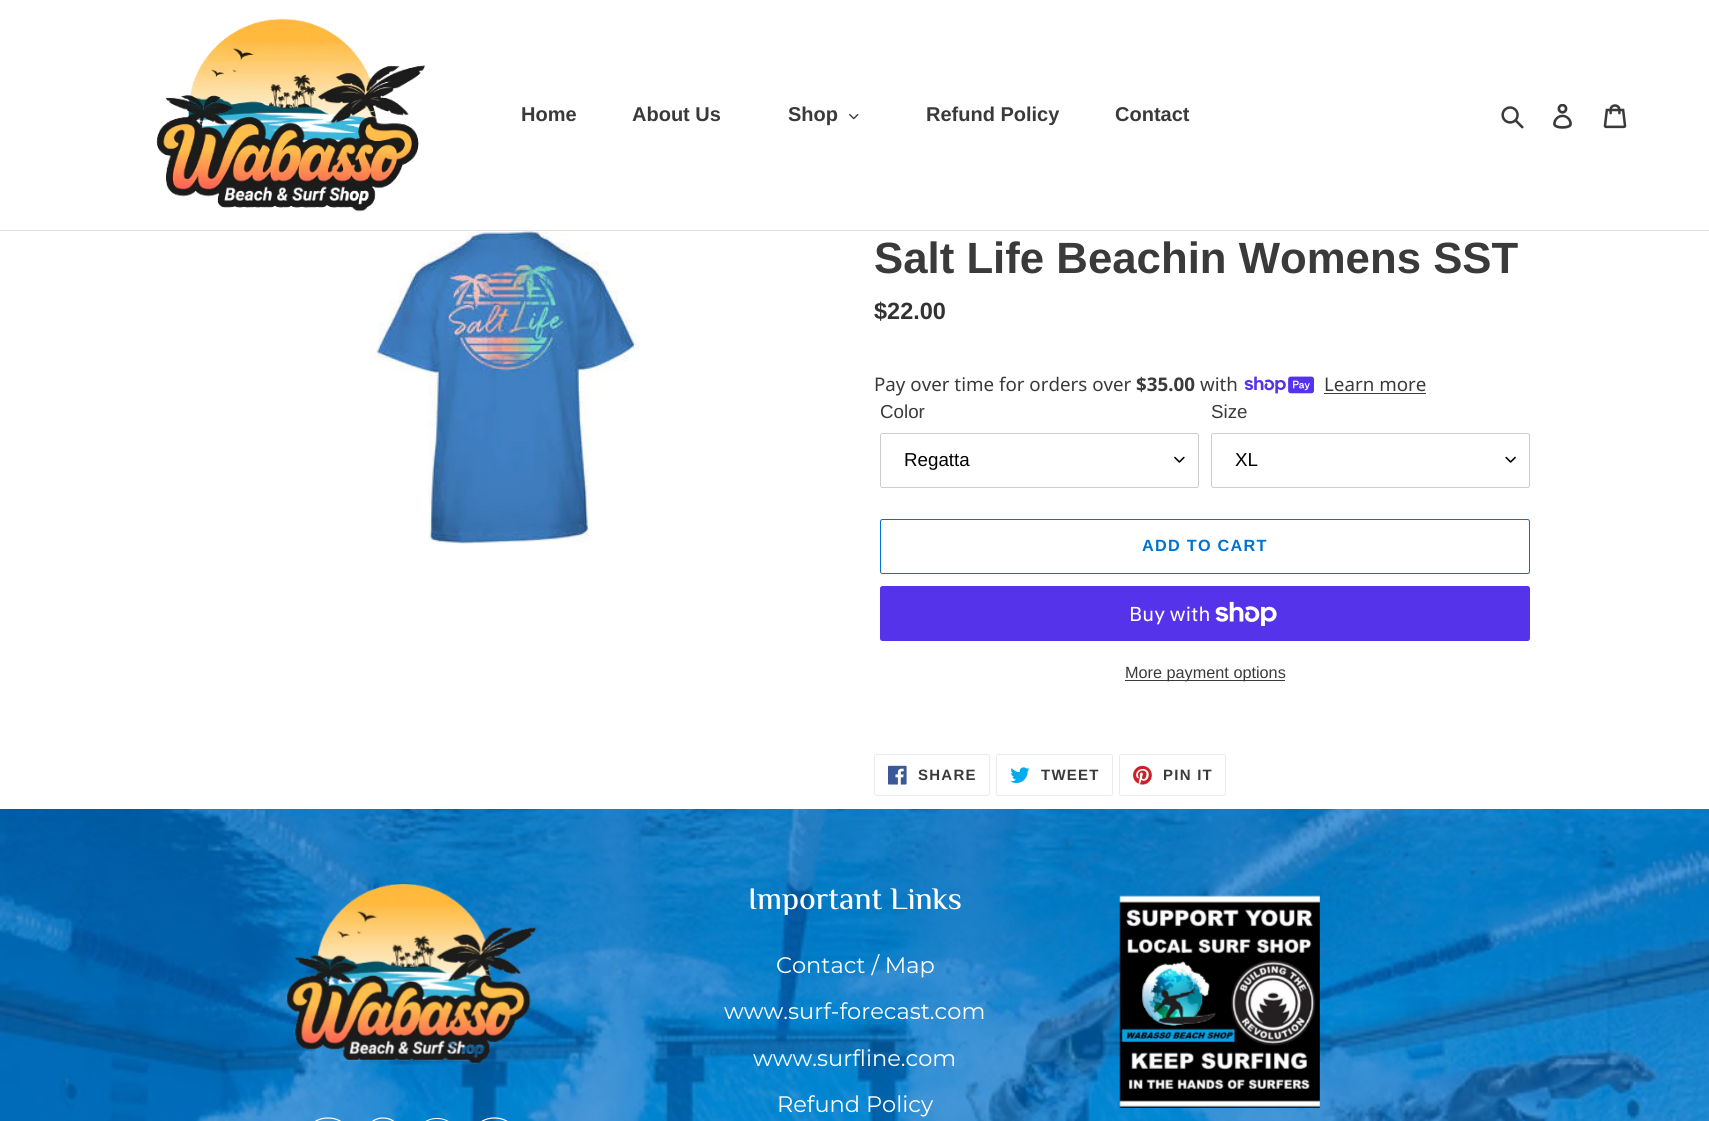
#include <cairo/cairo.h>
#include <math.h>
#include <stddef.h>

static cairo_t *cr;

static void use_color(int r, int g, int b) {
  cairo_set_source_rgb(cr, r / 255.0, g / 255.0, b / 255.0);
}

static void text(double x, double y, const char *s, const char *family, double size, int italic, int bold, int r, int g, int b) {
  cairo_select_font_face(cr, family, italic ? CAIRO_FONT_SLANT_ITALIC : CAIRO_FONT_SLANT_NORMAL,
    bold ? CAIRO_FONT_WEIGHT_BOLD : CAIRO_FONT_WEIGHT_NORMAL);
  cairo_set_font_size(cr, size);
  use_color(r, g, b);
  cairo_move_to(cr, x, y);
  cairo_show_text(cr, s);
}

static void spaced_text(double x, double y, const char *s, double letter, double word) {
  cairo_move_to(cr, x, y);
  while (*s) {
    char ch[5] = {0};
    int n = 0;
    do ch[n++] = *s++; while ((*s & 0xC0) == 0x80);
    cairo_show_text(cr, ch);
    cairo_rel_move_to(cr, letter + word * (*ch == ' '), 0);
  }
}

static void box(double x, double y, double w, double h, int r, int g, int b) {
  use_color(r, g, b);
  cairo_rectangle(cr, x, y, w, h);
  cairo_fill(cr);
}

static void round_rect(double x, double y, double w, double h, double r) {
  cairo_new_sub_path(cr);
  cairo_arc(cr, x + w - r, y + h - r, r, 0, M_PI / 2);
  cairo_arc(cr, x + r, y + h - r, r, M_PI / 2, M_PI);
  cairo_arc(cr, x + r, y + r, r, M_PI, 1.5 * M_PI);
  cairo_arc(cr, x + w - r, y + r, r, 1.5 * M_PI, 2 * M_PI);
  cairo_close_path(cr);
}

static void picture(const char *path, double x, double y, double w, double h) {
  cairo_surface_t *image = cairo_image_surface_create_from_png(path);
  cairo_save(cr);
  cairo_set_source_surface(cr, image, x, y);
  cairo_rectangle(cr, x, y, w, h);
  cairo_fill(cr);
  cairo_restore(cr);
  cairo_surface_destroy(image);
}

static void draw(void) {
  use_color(255, 255, 255);
  cairo_paint(cr);
  box(0, 230, 1709, 1, 222, 226, 230);
  picture("img_01.png", 156, 18, 269, 194);
  picture("img_02.png", 849, 113, 10, 7);
  picture("img_03.png", 1501, 106, 23, 23);
  picture("img_04.png", 1553, 104, 19, 25);
  picture("img_05.png", 1603, 104, 24, 25);
  picture("img_06.png", 369, 231, 270, 313);
  picture("img_07.png", 1244, 376, 70, 18);
  box(1324, 393, 102, 1, 58, 58, 58);
  picture("img_08.png", 1174, 456, 11, 7);
  round_rect(880.5, 433.5, 318, 54, 2);
  use_color(204, 204, 204);
  cairo_set_line_width(cr, 1);
  cairo_stroke(cr);
  picture("img_09.png", 1505, 456, 11, 7);
  round_rect(1211.5, 433.5, 318, 54, 2);
  cairo_stroke(cr);
  round_rect(880.5, 519.5, 649, 54, 2);
  use_color(0, 114, 208);
  cairo_stroke(cr);
  use_color(84, 51, 235);
  round_rect(880, 586, 650, 55, 2.5);
  cairo_fill(cr);
  picture("img_10.png", 1215, 601, 62, 25);
  box(1125, 680, 160, 1, 58, 58, 58);
  round_rect(874.5, 754.5, 115, 41, 2);
  use_color(235, 235, 235);
  cairo_stroke(cr);
  picture("img_11.png", 888, 765, 19, 20);
  round_rect(996.5, 754.5, 116, 41, 2);
  cairo_stroke(cr);
  picture("img_12.png", 1010, 767, 20, 16);
  round_rect(1119.5, 754.5, 106, 41, 2);
  cairo_stroke(cr);
  picture("img_13.png", 1133, 765, 19, 20);
  picture("img_14.png", 0, 809, 1709, 312);
  picture("img_15.png", 286, 884, 251, 180);
  cairo_new_path(cr);
  cairo_move_to(cr, 328, 1118);
  cairo_curve_to(cr, 357.5, 1118, 357.5, 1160.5, 328, 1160.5);
  cairo_curve_to(cr, 298.5, 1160.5, 298.5, 1118, 328, 1118);
  cairo_close_path(cr);
  use_color(255, 255, 255);
  cairo_set_line_width(cr, 1.2);
  cairo_stroke(cr);
  cairo_new_path(cr);
  cairo_move_to(cr, 383, 1118);
  cairo_curve_to(cr, 408, 1118, 408, 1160.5, 383, 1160.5);
  cairo_curve_to(cr, 358.5, 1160.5, 358.5, 1118, 383, 1118);
  cairo_close_path(cr);
  cairo_stroke(cr);
  round_rect(415.5, 1118.5, 43, 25, 21);
  cairo_set_line_width(cr, 1);
  cairo_stroke(cr);
  cairo_new_path(cr);
  cairo_move_to(cr, 494.5, 1118);
  cairo_curve_to(cr, 524, 1118, 524, 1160.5, 494.5, 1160.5);
  cairo_curve_to(cr, 465, 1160.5, 465, 1118, 494.5, 1118);
  cairo_close_path(cr);
  cairo_set_line_width(cr, 1.2);
  cairo_stroke(cr);
  picture("img_16.png", 1119, 895, 201, 213);
  text(521, 121, "Home", "Liberation Sans", 20, 0, 1, 58, 58, 58);
  text(632, 121, "About Us", "Liberation Sans", 20, 0, 1, 58, 58, 58);
  text(788, 121, "Shop", "Liberation Sans", 20, 0, 1, 58, 58, 58);
  text(926, 121, "Refund Policy", "Liberation Sans", 20, 0, 1, 58, 58, 58);
  text(1115, 121, "Contact", "Liberation Sans", 20, 0, 1, 58, 58, 58);
  text(874, 273, "Salt Life Beachin Womens SST", "Liberation Sans", 43.75, 0, 1, 58, 58, 58);
  text(874, 319, "$22.00", "Liberation Sans", 23.5, 0, 1, 51, 50, 50);
  text(874, 391, "Pay over time for orders over", "Noto Sans", 18.75, 0, 0, 58, 58, 58);
  text(1136, 391, "$35.00", "Noto Sans", 18.75, 0, 1, 58, 58, 58);
  text(1200, 391, "with", "Noto Sans", 18.75, 0, 0, 58, 58, 58);
  text(1324, 391, "Learn more", "Noto Sans", 18.75, 0, 0, 58, 58, 58);
  text(880, 418, "Color", "Liberation Sans", 18.75, 0, 0, 58, 58, 58);
  text(904, 466, "Regatta", "Liberation Sans", 18.75, 0, 0, 0, 0, 0);
  text(1211, 418, "Size", "Liberation Sans", 18.75, 0, 0, 58, 58, 58);
  text(1235, 466, "XL", "Liberation Sans", 18.75, 0, 0, 0, 0, 0);
  cairo_select_font_face(cr, "Liberation Sans", CAIRO_FONT_SLANT_NORMAL, CAIRO_FONT_WEIGHT_BOLD);
  cairo_set_font_size(cr, 16.25);
  use_color(0, 114, 208);
  spaced_text(1142, 551, "ADD TO CART", 1.25, 0);
  text(1129, 621, "Buy with", "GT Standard", 20, 0, 0, 255, 255, 255);
  text(1125, 678, "More payment options", "Liberation Sans", 16.25, 0, 0, 58, 58, 58);
  cairo_select_font_face(cr, "Liberation Sans", CAIRO_FONT_SLANT_NORMAL, CAIRO_FONT_WEIGHT_BOLD);
  cairo_set_font_size(cr, 15);
  spaced_text(918, 780, "SHARE", 1.25, 0);
  spaced_text(1041, 780, "TWEET", 1.25, 0);
  spaced_text(1163, 780, "PIN IT", 1.25, 0);
  text(748, 909, "Important Links", "El Messiri Medium", 31.25, 0, 0, 255, 255, 255);
  text(776, 973, "Contact / Map", "Montserrat", 22.5, 0, 0, 255, 255, 255);
  text(724, 1019, "www.surf-forecast.com", "Montserrat", 22.5, 0, 0, 255, 255, 255);
  text(753, 1066, "www.surfline.com", "Montserrat", 22.5, 0, 0, 255, 255, 255);
  text(777, 1112, "Refund Policy", "Montserrat", 22.5, 0, 0, 255, 255, 255);
}

int main(void) {
  cairo_surface_t *surface = cairo_image_surface_create(CAIRO_FORMAT_RGB24, 1709, 1121);
  cr = cairo_create(surface);
  cairo_font_options_t *options = cairo_font_options_create();
  cairo_font_options_set_hint_metrics(options, CAIRO_HINT_METRICS_OFF);
  cairo_font_options_set_hint_style(options, CAIRO_HINT_STYLE_NONE);
  cairo_set_font_options(cr, options);
  cairo_set_miter_limit(cr, 4);
  draw();
  cairo_surface_write_to_png(surface, "out.png");
  cairo_font_options_destroy(options);
  cairo_destroy(cr);
  cairo_surface_destroy(surface);
  return 0;
}
